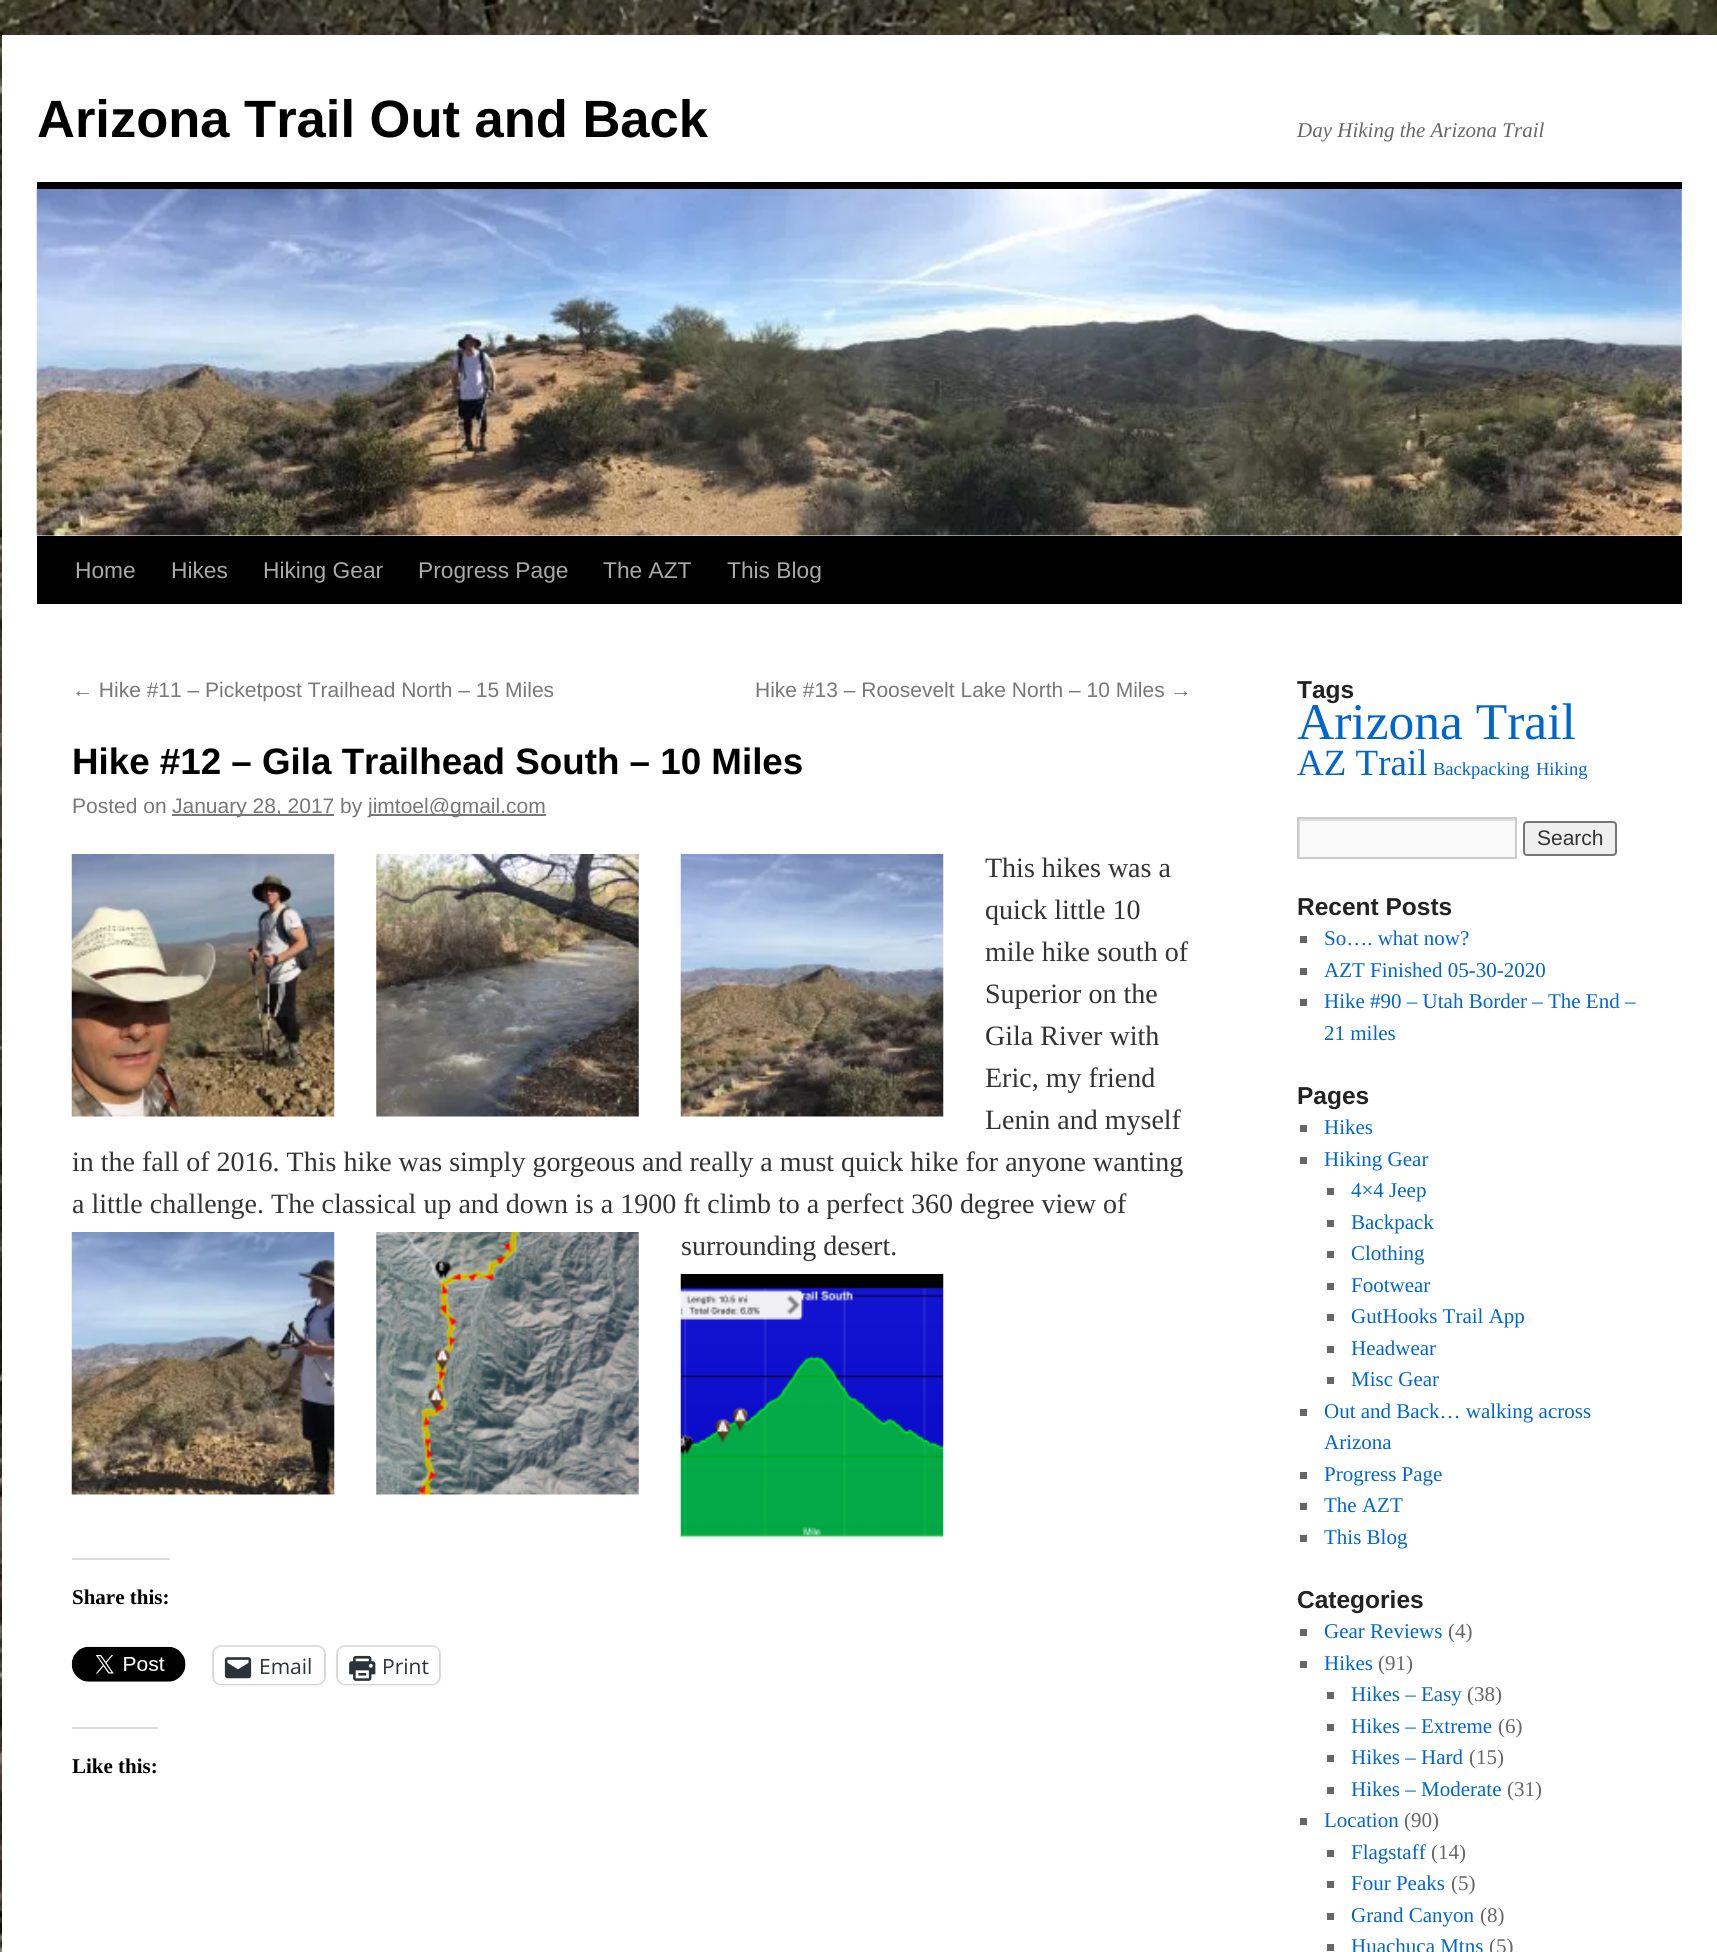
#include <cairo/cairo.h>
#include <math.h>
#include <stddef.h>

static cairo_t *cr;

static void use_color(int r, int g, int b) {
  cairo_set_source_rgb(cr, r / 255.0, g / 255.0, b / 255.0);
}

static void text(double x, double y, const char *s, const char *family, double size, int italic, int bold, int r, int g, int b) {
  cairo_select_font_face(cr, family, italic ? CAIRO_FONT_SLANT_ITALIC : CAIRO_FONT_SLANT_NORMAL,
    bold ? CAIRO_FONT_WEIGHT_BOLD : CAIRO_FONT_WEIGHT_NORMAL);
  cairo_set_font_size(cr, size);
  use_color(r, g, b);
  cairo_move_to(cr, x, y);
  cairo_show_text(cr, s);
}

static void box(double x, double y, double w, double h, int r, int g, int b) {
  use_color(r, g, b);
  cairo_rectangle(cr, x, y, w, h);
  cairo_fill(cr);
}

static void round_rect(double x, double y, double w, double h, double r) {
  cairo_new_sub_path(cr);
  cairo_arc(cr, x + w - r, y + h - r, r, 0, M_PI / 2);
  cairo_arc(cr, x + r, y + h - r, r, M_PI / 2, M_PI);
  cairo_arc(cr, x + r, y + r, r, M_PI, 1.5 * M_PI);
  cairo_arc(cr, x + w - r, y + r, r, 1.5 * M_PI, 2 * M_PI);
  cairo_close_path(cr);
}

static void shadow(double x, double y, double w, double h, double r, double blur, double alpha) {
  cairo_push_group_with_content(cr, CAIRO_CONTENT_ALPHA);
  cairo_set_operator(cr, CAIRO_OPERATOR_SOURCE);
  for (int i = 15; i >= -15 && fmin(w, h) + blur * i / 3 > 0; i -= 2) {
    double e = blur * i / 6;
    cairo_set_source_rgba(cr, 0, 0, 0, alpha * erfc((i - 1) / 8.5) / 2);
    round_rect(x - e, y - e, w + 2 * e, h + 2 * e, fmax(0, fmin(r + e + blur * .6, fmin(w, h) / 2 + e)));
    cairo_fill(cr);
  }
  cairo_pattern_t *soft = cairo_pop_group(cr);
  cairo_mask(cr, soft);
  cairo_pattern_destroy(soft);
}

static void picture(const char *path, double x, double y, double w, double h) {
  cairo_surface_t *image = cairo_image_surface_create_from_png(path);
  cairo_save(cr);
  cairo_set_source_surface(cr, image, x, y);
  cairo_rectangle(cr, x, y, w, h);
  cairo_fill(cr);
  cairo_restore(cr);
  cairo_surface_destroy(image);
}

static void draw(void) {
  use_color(255, 255, 255);
  cairo_paint(cr);
  picture("img_01.png", 0, 0, 1717, 1952);
  box(2, 35, 1715, 1917, 255, 255, 255);
  box(37, 182, 1645, 7, 0, 0, 0);
  box(37, 536, 1645, 68, 0, 0, 0);
  picture("img_02.png", 36, 189, 1646, 347);
  box(172, 814, 162, 2, 119, 119, 119);
  box(369, 814, 177, 2, 119, 119, 119);
  picture("img_03.png", 71, 854, 264, 263);
  picture("img_04.png", 376, 854, 263, 263);
  picture("img_05.png", 680, 854, 264, 263);
  picture("img_06.png", 71, 1232, 264, 263);
  picture("img_07.png", 376, 1232, 263, 263);
  picture("img_08.png", 680, 1274, 264, 263);
  box(72, 1558, 98, 2, 220, 220, 222);
  picture("img_09.png", 71, 1646, 115, 36);
  round_rect(213, 1646, 112, 38, 8);
  use_color(224, 224, 224);
  cairo_stroke(cr);
  use_color(0, 0, 0);
  shadow(214, 1649, 110, 36, 7, 2, 0.12);
  use_color(255, 255, 255);
  round_rect(214, 1647, 110, 37, 7);
  cairo_fill(cr);
  picture("img_10.png", 224, 1657, 28, 22);
  round_rect(337, 1646, 103, 38, 8);
  use_color(224, 224, 224);
  cairo_stroke(cr);
  use_color(0, 0, 0);
  shadow(338, 1649, 101, 36, 7, 2, 0.12);
  use_color(255, 255, 255);
  round_rect(338, 1647, 101, 37, 7);
  cairo_fill(cr);
  picture("img_11.png", 349, 1655, 27, 26);
  box(72, 1727, 86, 2, 220, 220, 222);
  box(1300, 821, 215, 36, 249, 249, 249);
  cairo_save(cr);
  cairo_rectangle(cr, 1299, 819, 217, 39);
  cairo_clip(cr);
  use_color(224, 224, 224);
  cairo_set_fill_rule(cr, CAIRO_FILL_RULE_EVEN_ODD);
  cairo_new_path(cr);
  cairo_move_to(cr, 1125, 646);
  cairo_line_to(cr, 1689, 646);
  cairo_line_to(cr, 1689, 1031);
  cairo_line_to(cr, 1125, 1031);
  cairo_close_path(cr);
  cairo_move_to(cr, 1300, 821);
  cairo_line_to(cr, 1517, 821);
  cairo_line_to(cr, 1517, 859);
  cairo_line_to(cr, 1300, 859);
  cairo_close_path(cr);
  cairo_fill(cr);
  cairo_restore(cr);
  cairo_rectangle(cr, 1298, 818, 218, 40);
  use_color(204, 204, 204);
  cairo_stroke(cr);
  use_color(239, 239, 239);
  round_rect(1524, 822, 92, 33, 3);
  cairo_fill_preserve(cr);
  use_color(118, 118, 118);
  cairo_stroke(cr);
  box(1300, 936, 7, 7, 102, 102, 102);
  box(1300, 968, 7, 7, 102, 102, 102);
  box(1300, 999, 7, 7, 102, 102, 102);
  box(1300, 1125, 7, 7, 102, 102, 102);
  box(1300, 1157, 7, 7, 102, 102, 102);
  box(1327, 1188, 7, 7, 102, 102, 102);
  box(1327, 1220, 7, 7, 102, 102, 102);
  box(1327, 1251, 7, 7, 102, 102, 102);
  box(1327, 1283, 7, 7, 102, 102, 102);
  box(1327, 1314, 7, 7, 102, 102, 102);
  box(1327, 1346, 7, 7, 102, 102, 102);
  box(1327, 1377, 7, 7, 102, 102, 102);
  box(1300, 1409, 7, 7, 102, 102, 102);
  box(1300, 1472, 7, 7, 102, 102, 102);
  box(1300, 1503, 7, 7, 102, 102, 102);
  box(1300, 1535, 7, 7, 102, 102, 102);
  box(1300, 1629, 7, 7, 102, 102, 102);
  box(1300, 1661, 7, 7, 102, 102, 102);
  box(1327, 1692, 7, 7, 102, 102, 102);
  box(1327, 1724, 7, 7, 102, 102, 102);
  box(1327, 1755, 7, 7, 102, 102, 102);
  box(1327, 1787, 7, 7, 102, 102, 102);
  box(1300, 1818, 7, 7, 102, 102, 102);
  box(1327, 1850, 7, 7, 102, 102, 102);
  box(1327, 1881, 7, 7, 102, 102, 102);
  box(1327, 1913, 7, 7, 102, 102, 102);
  box(1327, 1944, 7, 7, 102, 102, 102);
  text(37, 137, "Arizona Trail Out and Back", "Liberation Sans", 52.5, 0, 1, 0, 0, 0);
  text(1297, 137, "Day Hiking the Arizona Trail", "Liberation Serif", 21, 1, 0, 102, 102, 102);
  text(75, 578, "Home", "Liberation Sans", 22.75, 0, 0, 170, 170, 170);
  text(171, 578, "Hikes", "Liberation Sans", 22.75, 0, 0, 170, 170, 170);
  text(263, 578, "Hiking Gear", "Liberation Sans", 22.75, 0, 0, 170, 170, 170);
  text(418, 578, "Progress Page", "Liberation Sans", 22.75, 0, 0, 170, 170, 170);
  text(603, 578, "The AZT", "Liberation Sans", 22.75, 0, 0, 170, 170, 170);
  text(727, 578, "This Blog", "Liberation Sans", 22.75, 0, 0, 170, 170, 170);
  text(72, 697, "← Hike #11 – Picketpost Trailhead North – 15 Miles", "Liberation Sans", 21, 0, 0, 119, 119, 119);
  text(755, 697, "Hike #13 – Roosevelt Lake North – 10 Miles →", "Liberation Sans", 21, 0, 0, 119, 119, 119);
  text(72, 774, "Hike #12 – Gila Trailhead South – 10 Miles", "Liberation Sans", 36.75, 0, 1, 0, 0, 0);
  text(72, 813, "Posted on", "Liberation Sans", 21, 0, 0, 119, 119, 119);
  text(172, 813, "January 28, 2017 by", "Liberation Sans", 21, 0, 0, 119, 119, 119);
  text(368, 813, "jimtoel@gmail.com", "Liberation Sans", 21, 0, 0, 119, 119, 119);
  text(985, 877, "This hikes was a", "Liberation Serif", 28, 0, 0, 51, 51, 51);
  text(985, 919, "quick little 10", "Liberation Serif", 28, 0, 0, 51, 51, 51);
  text(985, 961, "mile hike south of", "Liberation Serif", 28, 0, 0, 51, 51, 51);
  text(985, 1003, "Superior on the", "Liberation Serif", 28, 0, 0, 51, 51, 51);
  text(985, 1045, "Gila River with", "Liberation Serif", 28, 0, 0, 51, 51, 51);
  text(985, 1087, "Eric, my friend", "Liberation Serif", 28, 0, 0, 51, 51, 51);
  text(985, 1129, "Lenin and myself", "Liberation Serif", 28, 0, 0, 51, 51, 51);
  text(72, 1171, "in the fall of 2016. This hike was simply gorgeous and really a must quick hike for anyone wanting", "Liberation Serif", 28, 0, 0, 51, 51, 51);
  text(72, 1213, "a little challenge. The classical up and down is a 1900 ft climb to a perfect 360 degree view of", "Liberation Serif", 28, 0, 0, 51, 51, 51);
  text(681, 1255, "surrounding desert.", "Liberation Serif", 28, 0, 0, 51, 51, 51);
  text(72, 1604, "Share this:", "Liberation Serif", 21, 0, 1, 0, 0, 0);
  text(259, 1674, "Email", "Open Sans", 21, 0, 0, 44, 51, 56);
  text(382, 1674, "Print", "Open Sans", 21, 0, 0, 44, 51, 56);
  text(72, 1773, "Like this:", "Liberation Serif", 21, 0, 1, 0, 0, 0);
  text(1297, 698, "Tags", "Liberation Sans", 24.5, 0, 1, 34, 34, 34);
  text(1297, 739, "Arizona Trail", "Liberation Serif", 51.5, 0, 0, 0, 102, 204);
  text(1297, 775, "AZ Trail", "Liberation Serif", 37, 0, 0, 0, 102, 204);
  text(1433, 775, "Backpacking", "Liberation Serif", 18.5, 0, 0, 0, 102, 204);
  text(1536, 775, "Hiking", "Liberation Serif", 18.5, 0, 0, 0, 102, 204);
  text(1537, 845, "Search", "Liberation Sans", 21, 0, 0, 51, 51, 51);
  text(1297, 915, "Recent Posts", "Liberation Sans", 24.5, 0, 1, 34, 34, 34);
  text(1324, 945, "So…. what now?", "Liberation Serif", 21, 0, 0, 0, 102, 204);
  text(1324, 977, "AZT Finished 05-30-2020", "Liberation Serif", 21, 0, 0, 0, 102, 204);
  text(1324, 1008, "Hike #90 – Utah Border – The End –", "Liberation Serif", 21, 0, 0, 0, 102, 204);
  text(1324, 1040, "21 miles", "Liberation Serif", 21, 0, 0, 0, 102, 204);
  text(1297, 1104, "Pages", "Liberation Sans", 24.5, 0, 1, 34, 34, 34);
  text(1324, 1134, "Hikes", "Liberation Serif", 21, 0, 0, 0, 102, 204);
  text(1324, 1166, "Hiking Gear", "Liberation Serif", 21, 0, 0, 0, 102, 204);
  text(1351, 1197, "4×4 Jeep", "Liberation Serif", 21, 0, 0, 0, 102, 204);
  text(1351, 1229, "Backpack", "Liberation Serif", 21, 0, 0, 0, 102, 204);
  text(1351, 1260, "Clothing", "Liberation Serif", 21, 0, 0, 0, 102, 204);
  text(1351, 1292, "Footwear", "Liberation Serif", 21, 0, 0, 0, 102, 204);
  text(1351, 1323, "GutHooks Trail App", "Liberation Serif", 21, 0, 0, 0, 102, 204);
  text(1351, 1355, "Headwear", "Liberation Serif", 21, 0, 0, 0, 102, 204);
  text(1351, 1386, "Misc Gear", "Liberation Serif", 21, 0, 0, 0, 102, 204);
  text(1324, 1418, "Out and Back… walking across", "Liberation Serif", 21, 0, 0, 0, 102, 204);
  text(1324, 1449, "Arizona", "Liberation Serif", 21, 0, 0, 0, 102, 204);
  text(1324, 1481, "Progress Page", "Liberation Serif", 21, 0, 0, 0, 102, 204);
  text(1324, 1512, "The AZT", "Liberation Serif", 21, 0, 0, 0, 102, 204);
  text(1324, 1544, "This Blog", "Liberation Serif", 21, 0, 0, 0, 102, 204);
  text(1297, 1608, "Categories", "Liberation Sans", 24.5, 0, 1, 34, 34, 34);
  text(1324, 1638, "Gear Reviews", "Liberation Serif", 21, 0, 0, 0, 102, 204);
  text(1448, 1638, "(4)", "Liberation Serif", 21, 0, 0, 102, 102, 102);
  text(1324, 1670, "Hikes", "Liberation Serif", 21, 0, 0, 0, 102, 204);
  text(1378, 1670, "(91)", "Liberation Serif", 21, 0, 0, 102, 102, 102);
  text(1351, 1701, "Hikes – Easy", "Liberation Serif", 21, 0, 0, 0, 102, 204);
  text(1467, 1701, "(38)", "Liberation Serif", 21, 0, 0, 102, 102, 102);
  text(1351, 1733, "Hikes – Extreme", "Liberation Serif", 21, 0, 0, 0, 102, 204);
  text(1498, 1733, "(6)", "Liberation Serif", 21, 0, 0, 102, 102, 102);
  text(1351, 1764, "Hikes – Hard", "Liberation Serif", 21, 0, 0, 0, 102, 204);
  text(1469, 1764, "(15)", "Liberation Serif", 21, 0, 0, 102, 102, 102);
  text(1351, 1796, "Hikes – Moderate", "Liberation Serif", 21, 0, 0, 0, 102, 204);
  text(1507, 1796, "(31)", "Liberation Serif", 21, 0, 0, 102, 102, 102);
  text(1324, 1827, "Location", "Liberation Serif", 21, 0, 0, 0, 102, 204);
  text(1404, 1827, "(90)", "Liberation Serif", 21, 0, 0, 102, 102, 102);
  text(1351, 1859, "Flagstaff", "Liberation Serif", 21, 0, 0, 0, 102, 204);
  text(1431, 1859, "(14)", "Liberation Serif", 21, 0, 0, 102, 102, 102);
  text(1351, 1890, "Four Peaks", "Liberation Serif", 21, 0, 0, 0, 102, 204);
  text(1451, 1890, "(5)", "Liberation Serif", 21, 0, 0, 102, 102, 102);
  text(1351, 1922, "Grand Canyon", "Liberation Serif", 21, 0, 0, 0, 102, 204);
  text(1480, 1922, "(8)", "Liberation Serif", 21, 0, 0, 102, 102, 102);
  text(1351, 1953, "Huachuca Mtns", "Liberation Serif", 21, 0, 0, 0, 102, 204);
  text(1489, 1953, "(5)", "Liberation Serif", 21, 0, 0, 102, 102, 102);
}

int main(void) {
  cairo_surface_t *surface = cairo_image_surface_create(CAIRO_FORMAT_RGB24, 1717, 1952);
  cr = cairo_create(surface);
  cairo_font_options_t *options = cairo_font_options_create();
  cairo_font_options_set_hint_metrics(options, CAIRO_HINT_METRICS_OFF);
  cairo_font_options_set_hint_style(options, CAIRO_HINT_STYLE_NONE);
  cairo_set_font_options(cr, options);
  cairo_set_miter_limit(cr, 4);
  draw();
  cairo_surface_write_to_png(surface, "out.png");
  cairo_font_options_destroy(options);
  cairo_destroy(cr);
  cairo_surface_destroy(surface);
  return 0;
}
